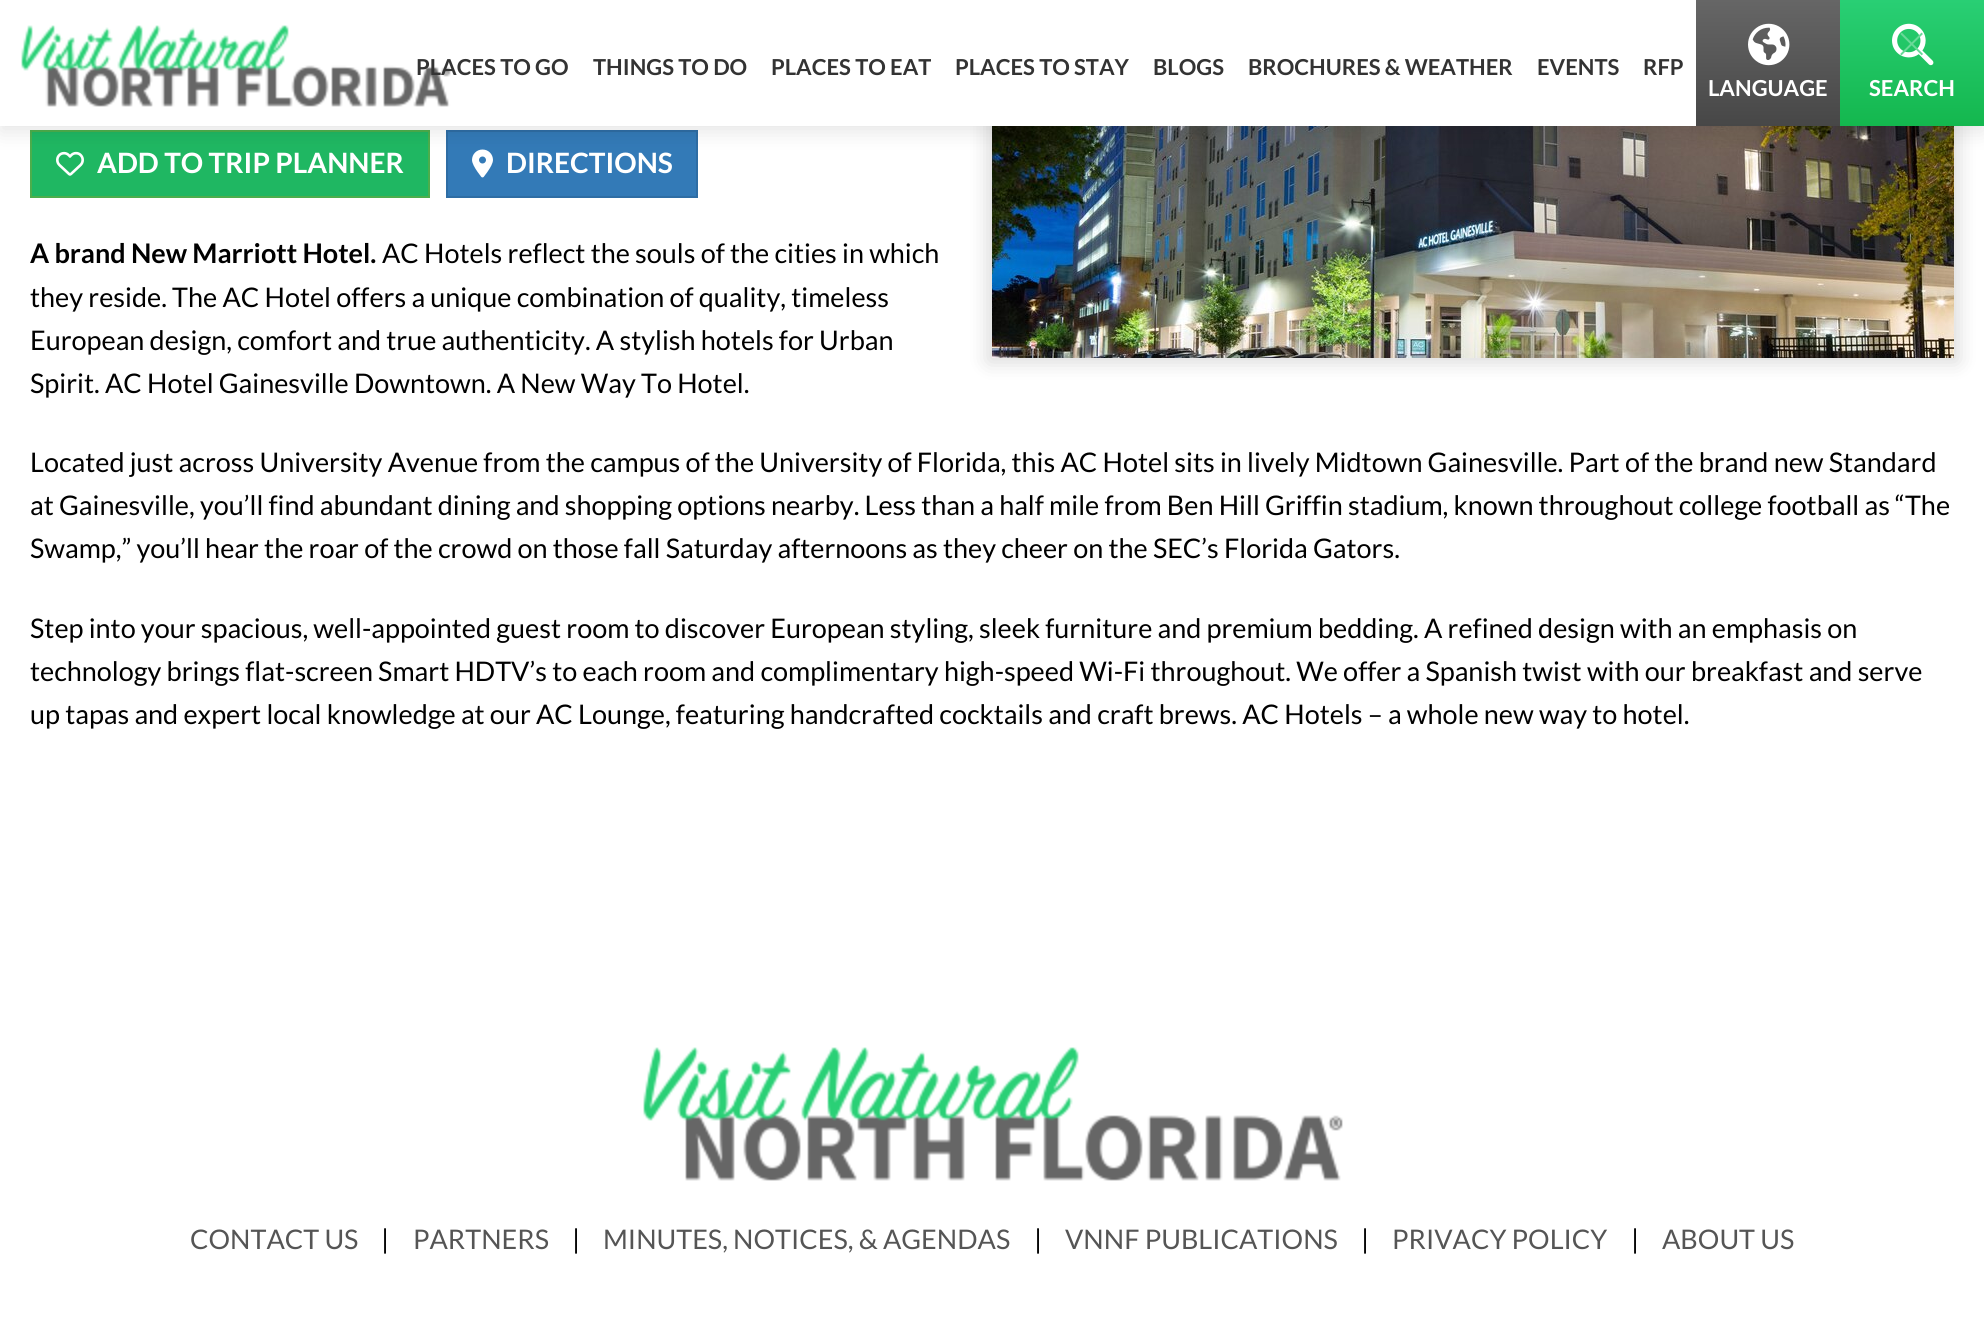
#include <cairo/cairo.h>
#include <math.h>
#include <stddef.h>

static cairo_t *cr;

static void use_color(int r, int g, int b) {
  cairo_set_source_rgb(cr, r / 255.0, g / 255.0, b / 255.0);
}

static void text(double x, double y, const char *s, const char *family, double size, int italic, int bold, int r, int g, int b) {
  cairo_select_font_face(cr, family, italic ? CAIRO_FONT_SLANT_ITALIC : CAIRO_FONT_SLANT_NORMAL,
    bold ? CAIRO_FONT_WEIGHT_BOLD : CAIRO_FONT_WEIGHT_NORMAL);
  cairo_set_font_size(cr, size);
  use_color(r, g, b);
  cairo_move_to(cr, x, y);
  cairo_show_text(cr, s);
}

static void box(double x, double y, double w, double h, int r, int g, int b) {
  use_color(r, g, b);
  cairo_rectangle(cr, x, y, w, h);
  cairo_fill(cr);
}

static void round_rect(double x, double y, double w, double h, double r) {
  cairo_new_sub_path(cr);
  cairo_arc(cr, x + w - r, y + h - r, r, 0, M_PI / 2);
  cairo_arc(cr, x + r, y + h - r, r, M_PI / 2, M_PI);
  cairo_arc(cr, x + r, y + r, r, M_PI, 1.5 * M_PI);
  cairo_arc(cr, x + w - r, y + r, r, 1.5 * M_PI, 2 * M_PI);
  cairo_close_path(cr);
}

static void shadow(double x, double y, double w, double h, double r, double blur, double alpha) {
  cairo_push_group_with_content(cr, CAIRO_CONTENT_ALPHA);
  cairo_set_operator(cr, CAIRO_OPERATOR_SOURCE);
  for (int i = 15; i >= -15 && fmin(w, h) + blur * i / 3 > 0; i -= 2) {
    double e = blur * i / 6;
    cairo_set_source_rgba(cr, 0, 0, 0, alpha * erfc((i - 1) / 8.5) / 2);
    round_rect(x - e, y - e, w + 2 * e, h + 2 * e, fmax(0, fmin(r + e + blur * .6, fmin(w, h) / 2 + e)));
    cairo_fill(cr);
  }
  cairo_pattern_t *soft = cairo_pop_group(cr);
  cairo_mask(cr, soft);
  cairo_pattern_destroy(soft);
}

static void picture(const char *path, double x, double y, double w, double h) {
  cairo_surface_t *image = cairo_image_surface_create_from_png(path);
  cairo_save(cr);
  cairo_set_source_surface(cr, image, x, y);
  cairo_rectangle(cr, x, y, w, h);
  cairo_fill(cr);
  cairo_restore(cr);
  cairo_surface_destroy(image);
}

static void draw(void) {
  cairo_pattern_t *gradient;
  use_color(255, 255, 255);
  cairo_paint(cr);
  use_color(0, 0, 0);
  shadow(988, -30, 970, 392, 0, 10, 0.15);
  picture("img_04.png", 992, 126, 962, 232);
  use_color(31, 183, 98);
  cairo_rectangle(cr, 31, 131, 398, 66);
  cairo_fill_preserve(cr);
  use_color(76, 174, 76);
  cairo_stroke(cr);
  picture("img_05.png", 56, 151, 28, 25);
  use_color(51, 122, 183);
  cairo_rectangle(cr, 447, 131, 250, 66);
  cairo_fill_preserve(cr);
  use_color(46, 109, 164);
  cairo_stroke(cr);
  picture("img_06.png", 472, 149, 21, 29);
  use_color(0, 0, 0);
  shadow(0, 6, 1984, 126, 0, 10, 0.1);
  box(0, 0, 1696, 126, 255, 255, 255);
  picture("img_01.png", 21, 25, 430, 82);
  gradient = cairo_pattern_create_linear(1768, 0, 1768, 126);
  cairo_pattern_add_color_stop_rgba(gradient, 0, 0.4, 0.4, 0.4, 1);
  cairo_pattern_add_color_stop_rgba(gradient, 1, 0.278, 0.278, 0.278, 1);
  cairo_set_source(cr, gradient);
  cairo_pattern_destroy(gradient);
  cairo_rectangle(cr, 1696, 0, 144, 126);
  cairo_fill(cr);
  picture("img_02.png", 1748, 23, 42, 43);
  gradient = cairo_pattern_create_linear(1912, 0, 1912, 126);
  cairo_pattern_add_color_stop_rgba(gradient, 0, 0.161, 0.812, 0.455, 1);
  cairo_pattern_add_color_stop_rgba(gradient, 1, 0.078, 0.718, 0.306, 1);
  cairo_set_source(cr, gradient);
  cairo_pattern_destroy(gradient);
  cairo_rectangle(cr, 1840, 0, 144, 126);
  cairo_fill(cr);
  picture("img_03.png", 1892, 23, 42, 43);
  picture("img_07.png", 643, 1047, 700, 134);
  text(416, 75, "PLACES TO GO", "Lato", 22, 0, 1, 51, 51, 51);
  text(593, 75, "THINGS TO DO", "Lato", 22, 0, 1, 51, 51, 51);
  text(771, 75, "PLACES TO EAT", "Lato", 22, 0, 1, 51, 51, 51);
  text(955, 75, "PLACES TO STAY", "Lato", 22, 0, 1, 51, 51, 51);
  text(1153, 75, "BLOGS", "Lato", 22, 0, 1, 51, 51, 51);
  text(1248, 75, "BROCHURES & WEATHER", "Lato", 22, 0, 1, 51, 51, 51);
  text(1537, 75, "EVENTS", "Lato", 22, 0, 1, 51, 51, 51);
  text(1643, 75, "RFP", "Lato", 22, 0, 1, 51, 51, 51);
  text(1708, 96, "LANGUAGE", "Lato", 22, 0, 1, 255, 255, 255);
  text(1896, 62, "×", "Lato Light", 54, 0, 0, 105, 217, 152);
  text(1869, 96, "SEARCH", "Lato", 22, 0, 1, 255, 255, 255);
  text(97, 173, "ADD TO TRIP PLANNER", "Lato", 28, 0, 1, 255, 255, 255);
  text(506, 173, "DIRECTIONS", "Lato", 28, 0, 1, 255, 255, 255);
  text(30, 263, "A brand New Marriott Hotel.", "Lato", 27, 0, 1, 0, 0, 0);
  text(382, 263, "AC Hotels reflect the souls of the cities in which", "Lato", 27, 0, 0, 0, 0, 0);
  text(30, 307, "they reside. The AC Hotel offers a unique combination of quality, timeless", "Lato", 27, 0, 0, 0, 0, 0);
  text(30, 350, "European design, comfort and true authenticity. A stylish hotels for Urban", "Lato", 27, 0, 0, 0, 0, 0);
  text(30, 393, "Spirit. AC Hotel Gainesville Downtown. A New Way To Hotel.", "Lato", 27, 0, 0, 0, 0, 0);
  text(30, 472, "Located just across University Avenue from the campus of the University of Florida, this AC Hotel sits in lively Midtown Gainesville. Part of the brand new Standard", "Lato", 27, 0, 0, 0, 0, 0);
  text(30, 515, "at Gainesville, you’ll find abundant dining and shopping options nearby. Less than a half mile from Ben Hill Griffin stadium, known throughout college football as “The", "Lato", 27, 0, 0, 0, 0, 0);
  text(30, 558, "Swamp,” you’ll hear the roar of the crowd on those fall Saturday afternoons as they cheer on the SEC’s Florida Gators.", "Lato", 27, 0, 0, 0, 0, 0);
  text(30, 638, "Step into your spacious, well-appointed guest room to discover European styling, sleek furniture and premium bedding. A refined design with an emphasis on", "Lato", 27, 0, 0, 0, 0, 0);
  text(30, 681, "technology brings flat-screen Smart HDTV’s to each room and complimentary high-speed Wi-Fi throughout. We offer a Spanish twist with our breakfast and serve", "Lato", 27, 0, 0, 0, 0, 0);
  text(30, 724, "up tapas and expert local knowledge at our AC Lounge, featuring handcrafted cocktails and craft brews. AC Hotels – a whole new way to hotel.", "Lato", 27, 0, 0, 0, 0, 0);
  text(190, 1249, "CONTACT US", "Lato", 27, 0, 0, 85, 85, 85);
  text(381, 1249, "|", "Lato", 27, 0, 0, 0, 0, 0);
  text(413, 1249, "PARTNERS", "Lato", 27, 0, 0, 85, 85, 85);
  text(572, 1249, "|", "Lato", 27, 0, 0, 0, 0, 0);
  text(603, 1249, "MINUTES, NOTICES, & AGENDAS", "Lato", 27, 0, 0, 85, 85, 85);
  text(1034, 1249, "|", "Lato", 27, 0, 0, 0, 0, 0);
  text(1065, 1249, "VNNF PUBLICATIONS", "Lato", 27, 0, 0, 85, 85, 85);
  text(1361, 1249, "|", "Lato", 27, 0, 0, 0, 0, 0);
  text(1392, 1249, "PRIVACY POLICY", "Lato", 27, 0, 0, 85, 85, 85);
  text(1631, 1249, "|", "Lato", 27, 0, 0, 0, 0, 0);
  text(1662, 1249, "ABOUT US", "Lato", 27, 0, 0, 85, 85, 85);
}

int main(void) {
  cairo_surface_t *surface = cairo_image_surface_create(CAIRO_FORMAT_RGB24, 1984, 1337);
  cr = cairo_create(surface);
  cairo_font_options_t *options = cairo_font_options_create();
  cairo_font_options_set_hint_metrics(options, CAIRO_HINT_METRICS_OFF);
  cairo_font_options_set_hint_style(options, CAIRO_HINT_STYLE_NONE);
  cairo_set_font_options(cr, options);
  cairo_set_miter_limit(cr, 4);
  draw();
  cairo_surface_write_to_png(surface, "out.png");
  cairo_font_options_destroy(options);
  cairo_destroy(cr);
  cairo_surface_destroy(surface);
  return 0;
}
